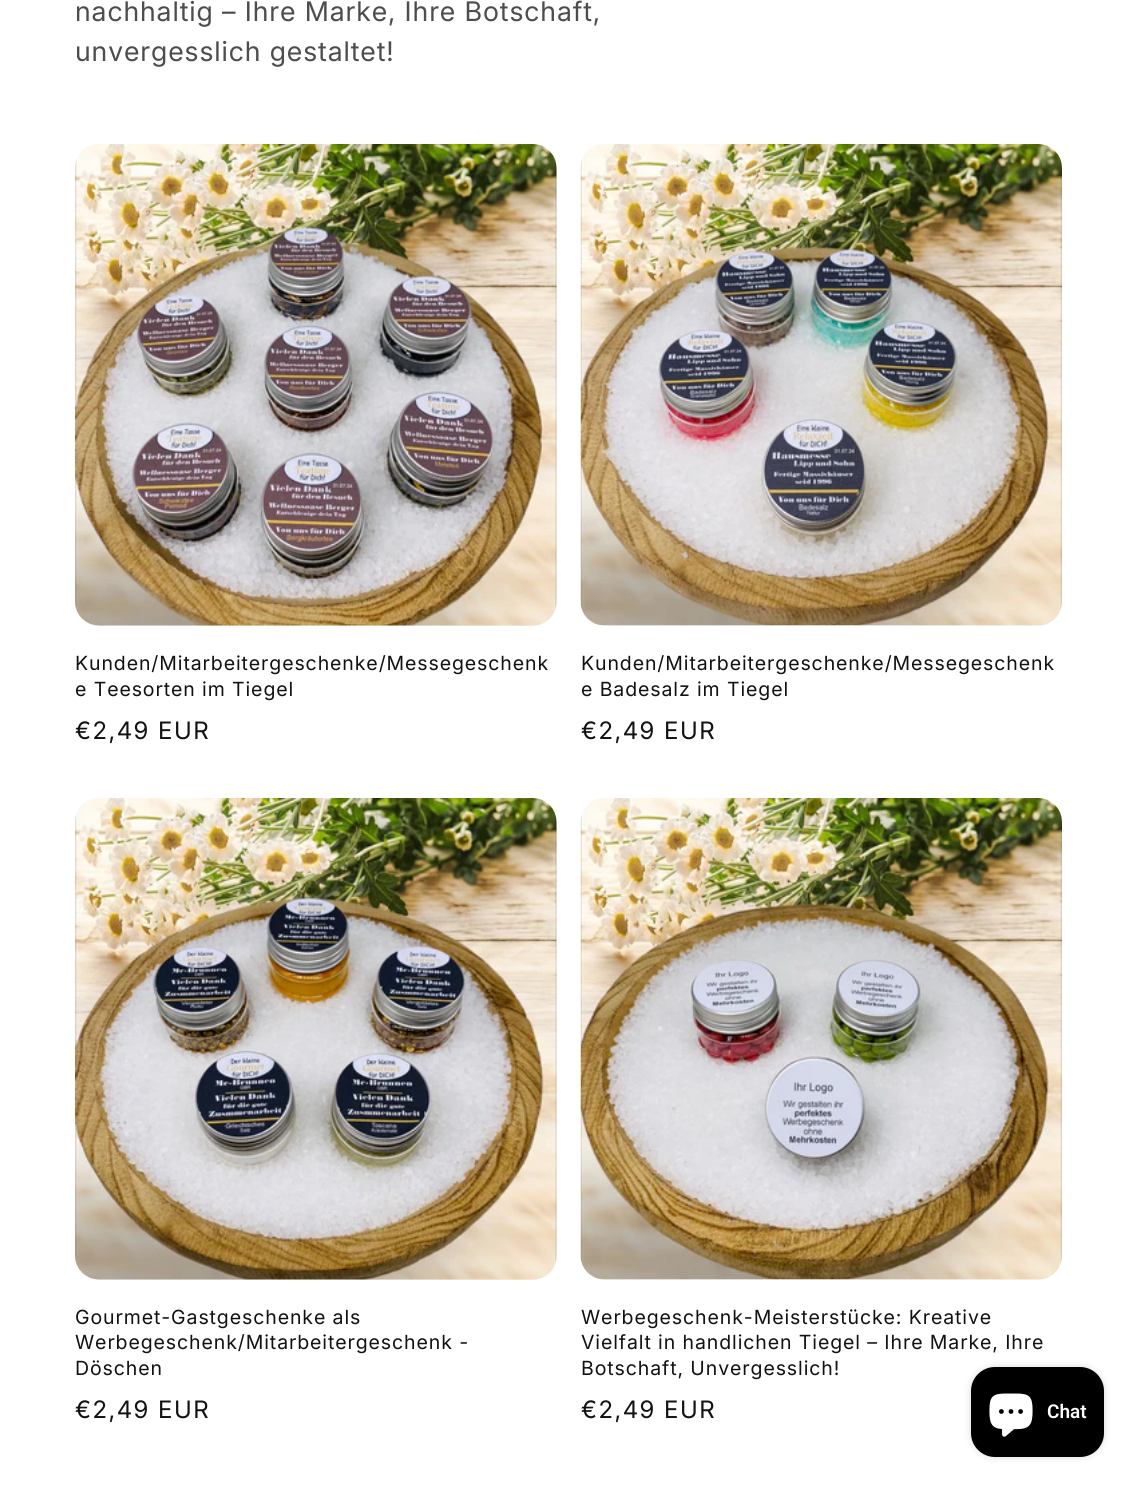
#include <cairo/cairo.h>
#include <math.h>
#include <stddef.h>

static cairo_t *cr;

static void use_color(int r, int g, int b) {
  cairo_set_source_rgb(cr, r / 255.0, g / 255.0, b / 255.0);
}

static void text(double x, double y, const char *s, const char *family, double size, int italic, int bold, int r, int g, int b) {
  cairo_select_font_face(cr, family, italic ? CAIRO_FONT_SLANT_ITALIC : CAIRO_FONT_SLANT_NORMAL,
    bold ? CAIRO_FONT_WEIGHT_BOLD : CAIRO_FONT_WEIGHT_NORMAL);
  cairo_set_font_size(cr, size);
  use_color(r, g, b);
  cairo_move_to(cr, x, y);
  cairo_show_text(cr, s);
}

static void spaced_text(double x, double y, const char *s, double letter, double word) {
  cairo_move_to(cr, x, y);
  while (*s) {
    char ch[5] = {0};
    int n = 0;
    do ch[n++] = *s++; while ((*s & 0xC0) == 0x80);
    cairo_show_text(cr, ch);
    cairo_rel_move_to(cr, letter + word * (*ch == ' '), 0);
  }
}

static void round_rect(double x, double y, double w, double h, double r) {
  cairo_new_sub_path(cr);
  cairo_arc(cr, x + w - r, y + h - r, r, 0, M_PI / 2);
  cairo_arc(cr, x + r, y + h - r, r, M_PI / 2, M_PI);
  cairo_arc(cr, x + r, y + r, r, M_PI, 1.5 * M_PI);
  cairo_arc(cr, x + w - r, y + r, r, 1.5 * M_PI, 2 * M_PI);
  cairo_close_path(cr);
}

static void shadow(double x, double y, double w, double h, double r, double blur, double alpha) {
  cairo_push_group_with_content(cr, CAIRO_CONTENT_ALPHA);
  cairo_set_operator(cr, CAIRO_OPERATOR_SOURCE);
  for (int i = 15; i >= -15 && fmin(w, h) + blur * i / 3 > 0; i -= 2) {
    double e = blur * i / 6;
    cairo_set_source_rgba(cr, 0, 0, 0, alpha * erfc((i - 1) / 8.5) / 2);
    round_rect(x - e, y - e, w + 2 * e, h + 2 * e, fmax(0, fmin(r + e + blur * .6, fmin(w, h) / 2 + e)));
    cairo_fill(cr);
  }
  cairo_pattern_t *soft = cairo_pop_group(cr);
  cairo_mask(cr, soft);
  cairo_pattern_destroy(soft);
}

static void picture(const char *path, double x, double y, double w, double h) {
  cairo_surface_t *image = cairo_image_surface_create_from_png(path);
  cairo_save(cr);
  cairo_set_source_surface(cr, image, x, y);
  cairo_rectangle(cr, x, y, w, h);
  cairo_fill(cr);
  cairo_restore(cr);
  cairo_surface_destroy(image);
}

static void draw(void) {
  use_color(255, 255, 255);
  cairo_paint(cr);
  use_color(243, 243, 243);
  round_rect(75, 144, 482, 482, 24);
  cairo_fill(cr);
  picture("img_01.png", 75, 144, 482, 482);
  round_rect(581, 144, 481, 482, 24);
  cairo_fill(cr);
  picture("img_02.png", 580, 144, 482, 482);
  round_rect(75, 798, 482, 482, 24);
  cairo_fill(cr);
  picture("img_03.png", 75, 798, 482, 482);
  round_rect(581, 798, 481, 482, 24);
  cairo_fill(cr);
  picture("img_04.png", 580, 798, 482, 482);
  use_color(0, 0, 0);
  shadow(971, 1367, 133, 90, 24, 4, 0.15);
  use_color(0, 0, 0);
  round_rect(971, 1367, 133, 90, 24);
  cairo_fill(cr);
  picture("img_05.png", 989, 1393, 44, 44);
  cairo_select_font_face(cr, "Inter", CAIRO_FONT_SLANT_NORMAL, CAIRO_FONT_WEIGHT_NORMAL);
  cairo_set_font_size(cr, 27);
  use_color(77, 77, 77);
  spaced_text(75, 21, "nachhaltig – Ihre Marke, Ihre Botschaft,", 0.9, 0);
  spaced_text(75, 61, "unvergesslich gestaltet!", 0.9, 0);
  cairo_select_font_face(cr, "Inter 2", CAIRO_FONT_SLANT_NORMAL, CAIRO_FONT_WEIGHT_NORMAL);
  cairo_set_font_size(cr, 19.5);
  use_color(18, 18, 18);
  spaced_text(75, 670, "Kunden/Mitarbeitergeschenke/Messegeschenk", 0.9, 0);
  spaced_text(75, 696, "e Teesorten im Tiegel", 0.9, 0);
  cairo_select_font_face(cr, "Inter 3", CAIRO_FONT_SLANT_NORMAL, CAIRO_FONT_WEIGHT_NORMAL);
  cairo_set_font_size(cr, 24);
  spaced_text(75, 739, "€2,49 EUR", 1.5, 0);
  cairo_select_font_face(cr, "Inter 2", CAIRO_FONT_SLANT_NORMAL, CAIRO_FONT_WEIGHT_NORMAL);
  cairo_set_font_size(cr, 19.5);
  spaced_text(581, 670, "Kunden/Mitarbeitergeschenke/Messegeschenk", 0.9, 0);
  spaced_text(581, 696, "e Badesalz im Tiegel", 0.9, 0);
  cairo_select_font_face(cr, "Inter 3", CAIRO_FONT_SLANT_NORMAL, CAIRO_FONT_WEIGHT_NORMAL);
  cairo_set_font_size(cr, 24);
  spaced_text(581, 739, "€2,49 EUR", 1.5, 0);
  cairo_select_font_face(cr, "Inter 2", CAIRO_FONT_SLANT_NORMAL, CAIRO_FONT_WEIGHT_NORMAL);
  cairo_set_font_size(cr, 19.5);
  spaced_text(75, 1324, "Gourmet-Gastgeschenke als", 0.9, 0);
  spaced_text(75, 1349, "Werbegeschenk/Mitarbeitergeschenk -", 0.9, 0);
  spaced_text(75, 1375, "Döschen", 0.9, 0);
  cairo_select_font_face(cr, "Inter 3", CAIRO_FONT_SLANT_NORMAL, CAIRO_FONT_WEIGHT_NORMAL);
  cairo_set_font_size(cr, 24);
  spaced_text(75, 1418, "€2,49 EUR", 1.5, 0);
  cairo_select_font_face(cr, "Inter 2", CAIRO_FONT_SLANT_NORMAL, CAIRO_FONT_WEIGHT_NORMAL);
  cairo_set_font_size(cr, 19.5);
  spaced_text(581, 1324, "Werbegeschenk-Meisterstücke: Kreative", 0.9, 0);
  spaced_text(581, 1349, "Vielfalt in handlichen Tiegel – Ihre Marke, Ihre", 0.9, 0);
  spaced_text(581, 1375, "Botschaft, Unvergesslich!", 0.9, 0);
  cairo_select_font_face(cr, "Inter 3", CAIRO_FONT_SLANT_NORMAL, CAIRO_FONT_WEIGHT_NORMAL);
  cairo_set_font_size(cr, 24);
  spaced_text(581, 1418, "€2,49 EUR", 1.5, 0);
  text(1047, 1418, "Chat", "Roboto SemiBold", 19, 0, 0, 255, 255, 255);
}

int main(void) {
  cairo_surface_t *surface = cairo_image_surface_create(CAIRO_FORMAT_RGB24, 1136, 1487);
  cr = cairo_create(surface);
  cairo_font_options_t *options = cairo_font_options_create();
  cairo_font_options_set_hint_metrics(options, CAIRO_HINT_METRICS_OFF);
  cairo_font_options_set_hint_style(options, CAIRO_HINT_STYLE_NONE);
  cairo_set_font_options(cr, options);
  cairo_set_miter_limit(cr, 4);
  draw();
  cairo_surface_write_to_png(surface, "out.png");
  cairo_font_options_destroy(options);
  cairo_destroy(cr);
  cairo_surface_destroy(surface);
  return 0;
}
